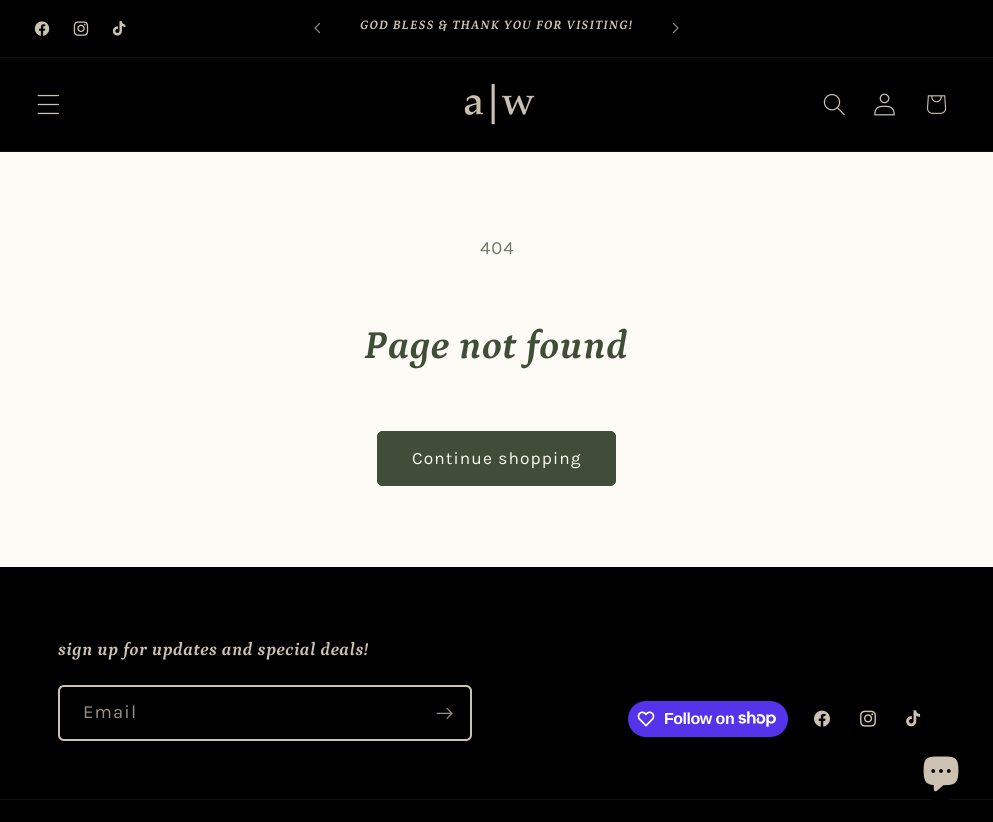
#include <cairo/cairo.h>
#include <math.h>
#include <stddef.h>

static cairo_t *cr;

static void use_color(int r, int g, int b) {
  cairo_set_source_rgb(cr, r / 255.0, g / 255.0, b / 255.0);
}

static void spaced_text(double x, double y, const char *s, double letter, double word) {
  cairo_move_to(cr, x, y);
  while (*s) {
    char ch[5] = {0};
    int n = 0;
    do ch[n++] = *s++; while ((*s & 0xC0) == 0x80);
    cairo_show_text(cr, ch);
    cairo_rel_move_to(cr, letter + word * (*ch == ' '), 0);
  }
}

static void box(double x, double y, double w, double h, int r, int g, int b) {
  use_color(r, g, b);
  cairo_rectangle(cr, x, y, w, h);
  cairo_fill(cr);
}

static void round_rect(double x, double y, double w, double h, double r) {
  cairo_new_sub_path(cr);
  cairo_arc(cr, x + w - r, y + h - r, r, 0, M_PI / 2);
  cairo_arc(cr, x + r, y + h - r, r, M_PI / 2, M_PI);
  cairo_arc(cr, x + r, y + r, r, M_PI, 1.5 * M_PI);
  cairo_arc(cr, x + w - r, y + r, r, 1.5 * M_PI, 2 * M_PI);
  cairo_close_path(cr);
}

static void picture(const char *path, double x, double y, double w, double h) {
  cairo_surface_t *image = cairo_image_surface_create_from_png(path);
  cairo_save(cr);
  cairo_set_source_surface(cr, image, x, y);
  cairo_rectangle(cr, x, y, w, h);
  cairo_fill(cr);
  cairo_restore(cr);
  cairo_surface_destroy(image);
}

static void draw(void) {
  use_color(252, 251, 245);
  cairo_paint(cr);
  box(0, 0, 993, 57, 0, 0, 0);
  box(0, 57, 993, 1, 16, 16, 14);
  picture("img_01.png", 34, 21, 16, 15);
  picture("img_02.png", 73, 21, 16, 15);
  picture("img_03.png", 112, 21, 14, 15);
  picture("img_04.png", 314, 22, 7, 12);
  picture("img_05.png", 672, 22, 7, 12);
  box(0, 58, 993, 93, 0, 0, 0);
  box(0, 151, 993, 1, 16, 16, 14);
  picture("img_06.png", 37, 94, 22, 21);
  picture("img_07.png", 464, 83, 71, 42);
  picture("img_08.png", 823, 94, 22, 22);
  picture("img_09.png", 874, 93, 21, 23);
  picture("img_10.png", 927, 95, 20, 19);
  use_color(64, 77, 56);
  round_rect(377, 431, 239, 55, 6);
  cairo_fill(cr);
  round_rect(378, 432, 237, 53, 5);
  cairo_stroke(cr);
  box(0, 567, 993, 255, 0, 0, 0);
  round_rect(59, 686, 412, 54, 5);
  use_color(205, 194, 178);
  cairo_stroke(cr);
  picture("img_11.png", 436, 707, 17, 12);
  use_color(84, 51, 235);
  round_rect(628, 701, 160, 36, 18);
  cairo_fill(cr);
  picture("img_12.png", 637, 711, 18, 16);
  picture("img_13.png", 738, 711, 38, 16);
  picture("img_14.png", 814, 710, 16, 17);
  picture("img_15.png", 860, 710, 16, 17);
  picture("img_16.png", 906, 710, 15, 17);
  box(0, 799, 993, 1, 16, 16, 14);
  use_color(0, 0, 0);
  cairo_arc(cr, 941, 771, 30, 0, 2 * M_PI);
  cairo_fill(cr);
  picture("img_17.png", 923, 756, 36, 36);
  cairo_select_font_face(cr, "Petrona", CAIRO_FONT_SLANT_ITALIC, CAIRO_FONT_WEIGHT_BOLD);
  cairo_set_font_size(cr, 13);
  use_color(205, 194, 178);
  spaced_text(360, 29, "GOD BLESS & THANK YOU FOR VISITING!", 1.15, 0);
  cairo_select_font_face(cr, "Karla", CAIRO_FONT_SLANT_NORMAL, CAIRO_FONT_WEIGHT_NORMAL);
  cairo_set_font_size(cr, 18.5);
  use_color(111, 121, 103);
  spaced_text(480, 254, "404", 1, 0);
  cairo_select_font_face(cr, "Petrona", CAIRO_FONT_SLANT_ITALIC, CAIRO_FONT_WEIGHT_BOLD);
  cairo_set_font_size(cr, 40);
  use_color(64, 77, 56);
  spaced_text(364, 358, "Page not found", 0.6, 0);
  cairo_select_font_face(cr, "Karla", CAIRO_FONT_SLANT_NORMAL, CAIRO_FONT_WEIGHT_NORMAL);
  cairo_set_font_size(cr, 17.25);
  use_color(252, 251, 245);
  spaced_text(412, 464, "Continue shopping", 1.15, 0);
  cairo_select_font_face(cr, "Petrona", CAIRO_FONT_SLANT_ITALIC, CAIRO_FONT_WEIGHT_BOLD);
  cairo_set_font_size(cr, 18);
  use_color(205, 194, 178);
  spaced_text(58, 655, "sign up for updates and special deals!", 0.6, 0);
  cairo_select_font_face(cr, "Karla", CAIRO_FONT_SLANT_NORMAL, CAIRO_FONT_WEIGHT_NORMAL);
  cairo_set_font_size(cr, 18.5);
  use_color(154, 146, 134);
  spaced_text(83, 718, "Email", 1.15, 0);
  cairo_select_font_face(cr, "Liberation Sans", CAIRO_FONT_SLANT_NORMAL, CAIRO_FONT_WEIGHT_BOLD);
  cairo_set_font_size(cr, 16);
  use_color(255, 255, 255);
  spaced_text(664, 724, "Follow on", -0.5, 0);
}

int main(void) {
  cairo_surface_t *surface = cairo_image_surface_create(CAIRO_FORMAT_RGB24, 993, 822);
  cr = cairo_create(surface);
  cairo_font_options_t *options = cairo_font_options_create();
  cairo_font_options_set_hint_metrics(options, CAIRO_HINT_METRICS_OFF);
  cairo_font_options_set_hint_style(options, CAIRO_HINT_STYLE_NONE);
  cairo_set_font_options(cr, options);
  cairo_set_miter_limit(cr, 4);
  draw();
  cairo_surface_write_to_png(surface, "out.png");
  cairo_font_options_destroy(options);
  cairo_destroy(cr);
  cairo_surface_destroy(surface);
  return 0;
}
